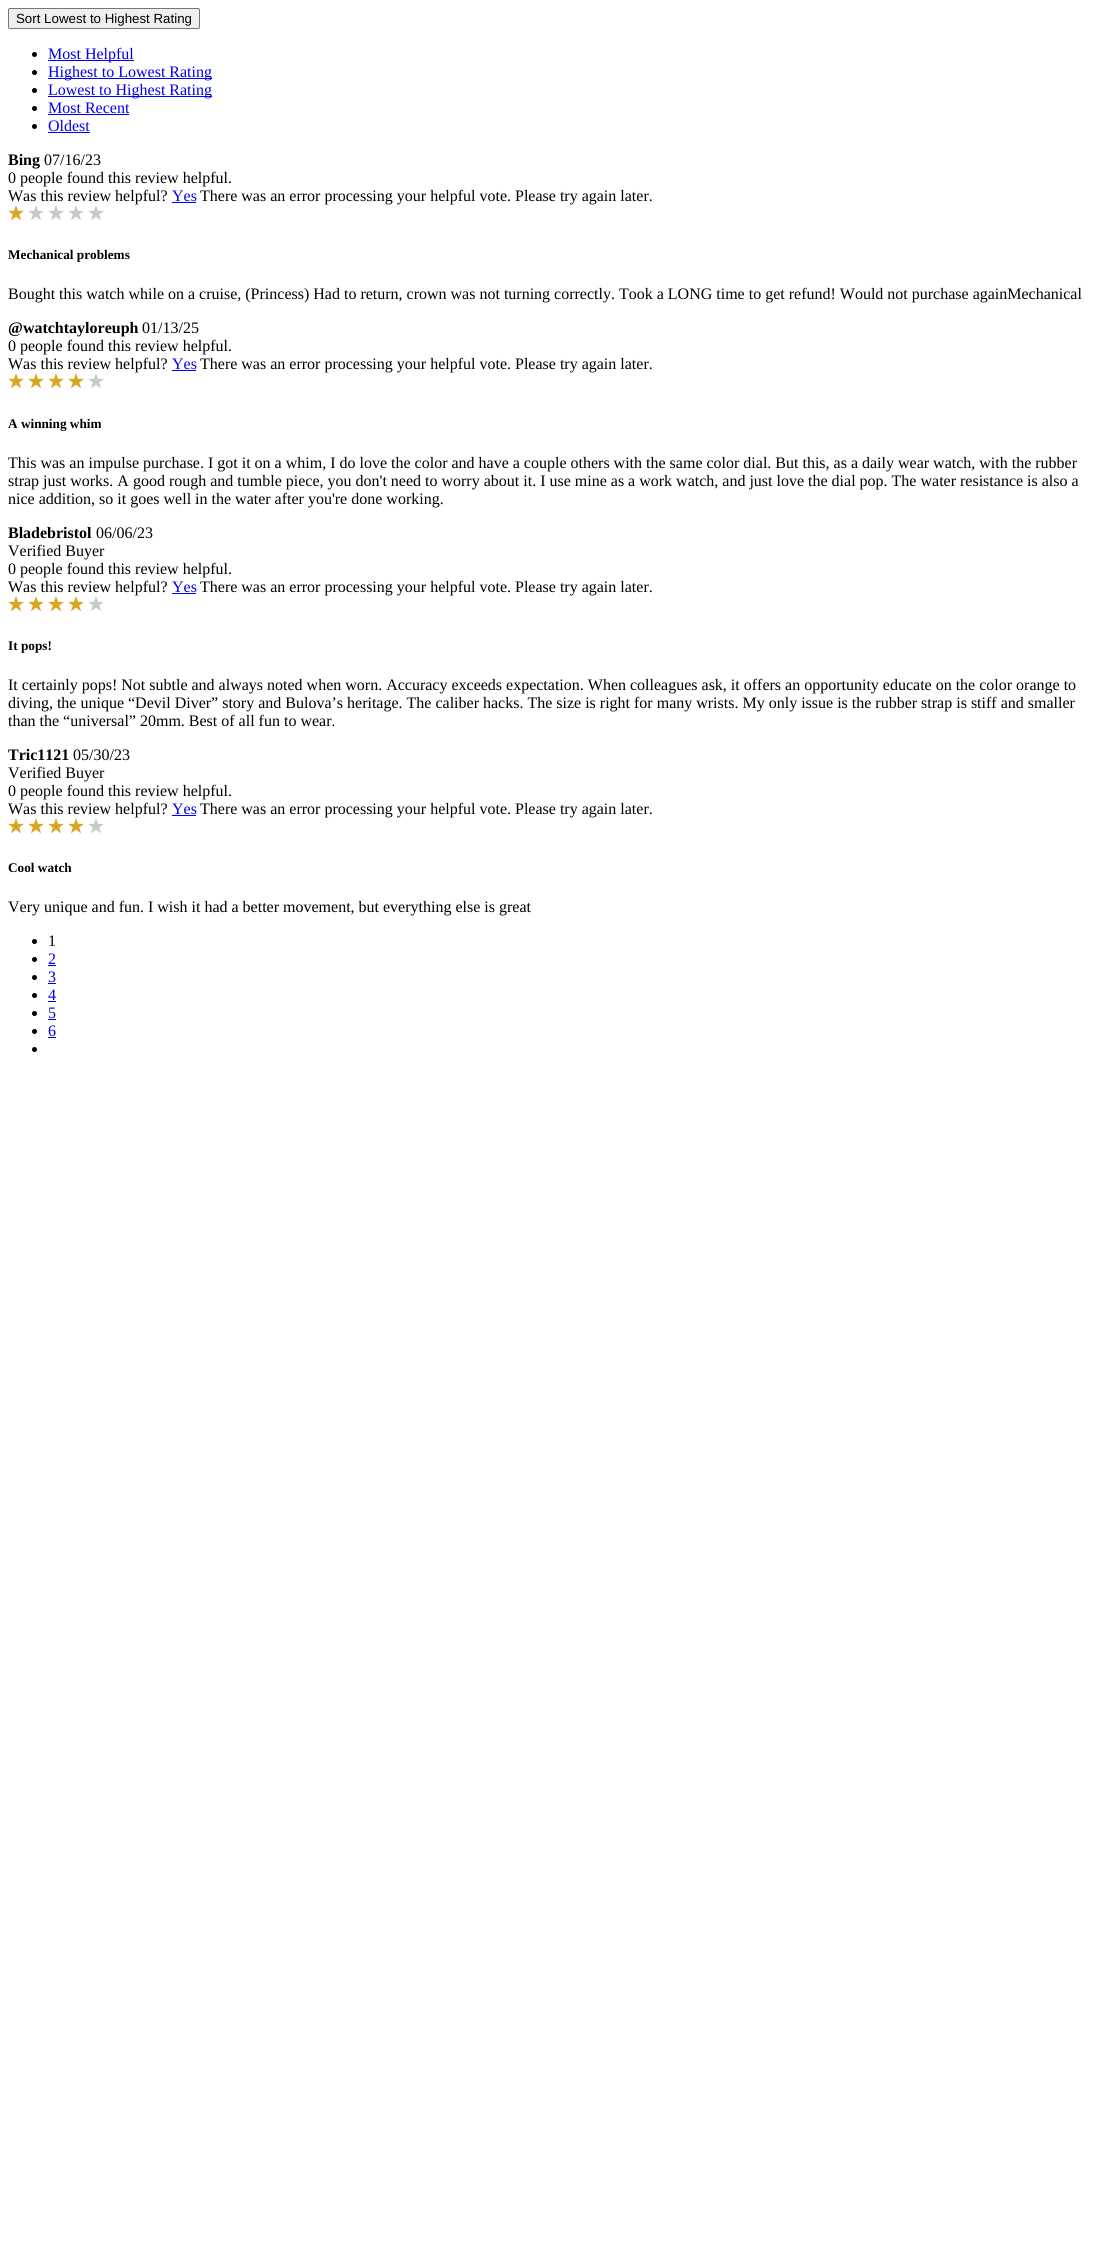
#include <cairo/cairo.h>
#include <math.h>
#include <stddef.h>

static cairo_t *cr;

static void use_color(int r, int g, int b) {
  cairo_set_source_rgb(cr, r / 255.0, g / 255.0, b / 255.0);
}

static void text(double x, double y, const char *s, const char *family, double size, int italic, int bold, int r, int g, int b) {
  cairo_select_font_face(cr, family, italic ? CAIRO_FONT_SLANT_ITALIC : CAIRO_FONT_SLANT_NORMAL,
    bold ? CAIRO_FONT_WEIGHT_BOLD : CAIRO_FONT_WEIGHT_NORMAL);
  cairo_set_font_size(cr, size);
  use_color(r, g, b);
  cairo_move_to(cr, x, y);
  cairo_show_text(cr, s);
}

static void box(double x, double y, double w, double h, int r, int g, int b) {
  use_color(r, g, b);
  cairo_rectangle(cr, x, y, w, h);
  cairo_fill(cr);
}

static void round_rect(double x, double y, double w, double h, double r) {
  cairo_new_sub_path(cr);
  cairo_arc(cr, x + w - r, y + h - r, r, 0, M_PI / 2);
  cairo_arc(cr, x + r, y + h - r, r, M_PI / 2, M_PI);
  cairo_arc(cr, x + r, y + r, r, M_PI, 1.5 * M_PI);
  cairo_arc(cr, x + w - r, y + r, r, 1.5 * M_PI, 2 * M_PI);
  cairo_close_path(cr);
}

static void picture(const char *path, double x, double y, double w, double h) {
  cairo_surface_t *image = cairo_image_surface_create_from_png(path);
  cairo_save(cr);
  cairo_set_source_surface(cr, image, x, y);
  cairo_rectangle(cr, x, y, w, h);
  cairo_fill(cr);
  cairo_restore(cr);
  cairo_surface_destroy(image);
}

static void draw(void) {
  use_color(255, 255, 255);
  cairo_paint(cr);
  use_color(239, 239, 239);
  round_rect(8.5, 8.5, 191, 20, 1.5);
  cairo_fill_preserve(cr);
  use_color(118, 118, 118);
  cairo_set_line_width(cr, 1);
  cairo_stroke(cr);
  use_color(0, 0, 0);
  cairo_arc(cr, 34.5, 54.5, 2.5, 0, 2 * M_PI);
  cairo_fill(cr);
  box(48, 60, 86, 1, 0, 0, 238);
  use_color(0, 0, 0);
  cairo_arc(cr, 34.5, 72.5, 2.5, 0, 2 * M_PI);
  cairo_fill(cr);
  box(48, 78, 164, 1, 0, 0, 238);
  use_color(0, 0, 0);
  cairo_arc(cr, 34.5, 90.5, 2.5, 0, 2 * M_PI);
  cairo_fill(cr);
  box(48, 96, 164, 1, 0, 0, 238);
  use_color(0, 0, 0);
  cairo_arc(cr, 34.5, 108.5, 2.5, 0, 2 * M_PI);
  cairo_fill(cr);
  box(48, 114, 81, 1, 0, 0, 238);
  use_color(0, 0, 0);
  cairo_arc(cr, 34.5, 126.5, 2.5, 0, 2 * M_PI);
  cairo_fill(cr);
  box(48, 132, 42, 1, 0, 0, 238);
  box(172, 202, 24, 1, 0, 0, 238);
  picture("img_01.png", 8, 205, 16, 16);
  picture("img_02.png", 28, 205, 16, 15);
  picture("img_02.png", 48, 205, 16, 15);
  picture("img_02.png", 68, 205, 16, 15);
  picture("img_02.png", 88, 205, 16, 15);
  box(172, 370, 24, 1, 0, 0, 238);
  picture("img_01.png", 8, 373, 16, 16);
  picture("img_01.png", 28, 373, 16, 16);
  picture("img_01.png", 48, 373, 16, 16);
  picture("img_01.png", 68, 373, 16, 16);
  picture("img_02.png", 88, 373, 16, 15);
  box(172, 593, 24, 1, 0, 0, 238);
  picture("img_01.png", 8, 596, 16, 16);
  picture("img_01.png", 28, 596, 16, 16);
  picture("img_01.png", 48, 596, 16, 16);
  picture("img_01.png", 68, 596, 16, 16);
  picture("img_02.png", 88, 596, 16, 15);
  box(172, 815, 24, 1, 0, 0, 238);
  picture("img_01.png", 8, 818, 16, 16);
  picture("img_01.png", 28, 818, 16, 16);
  picture("img_01.png", 48, 818, 16, 16);
  picture("img_01.png", 68, 818, 16, 16);
  picture("img_02.png", 88, 818, 16, 15);
  use_color(0, 0, 0);
  cairo_arc(cr, 34.5, 941.5, 2.5, 0, 2 * M_PI);
  cairo_fill(cr);
  cairo_arc(cr, 34.5, 959.5, 2.5, 0, 2 * M_PI);
  cairo_fill(cr);
  box(48, 965, 8, 1, 0, 0, 238);
  use_color(0, 0, 0);
  cairo_arc(cr, 34.5, 977.5, 2.5, 0, 2 * M_PI);
  cairo_fill(cr);
  box(48, 983, 8, 1, 0, 0, 238);
  use_color(0, 0, 0);
  cairo_arc(cr, 34.5, 995.5, 2.5, 0, 2 * M_PI);
  cairo_fill(cr);
  box(48, 1001, 8, 1, 0, 0, 238);
  use_color(0, 0, 0);
  cairo_arc(cr, 34.5, 1013.5, 2.5, 0, 2 * M_PI);
  cairo_fill(cr);
  box(48, 1019, 8, 1, 0, 0, 238);
  use_color(0, 0, 0);
  cairo_arc(cr, 34.5, 1031.5, 2.5, 0, 2 * M_PI);
  cairo_fill(cr);
  box(48, 1037, 8, 1, 0, 0, 238);
  use_color(0, 0, 0);
  cairo_arc(cr, 34.5, 1049.5, 2.5, 0, 2 * M_PI);
  cairo_fill(cr);
  text(16, 23, "Sort Lowest to Highest Rating", "Liberation Sans", 13.3, 0, 0, 0, 0, 0);
  text(48, 59, "Most Helpful", "Liberation Serif", 16, 0, 0, 0, 0, 238);
  text(48, 77, "Highest to Lowest Rating", "Liberation Serif", 16, 0, 0, 0, 0, 238);
  text(48, 95, "Lowest to Highest Rating", "Liberation Serif", 16, 0, 0, 0, 0, 238);
  text(48, 113, "Most Recent", "Liberation Serif", 16, 0, 0, 0, 0, 238);
  text(48, 131, "Oldest", "Liberation Serif", 16, 0, 0, 0, 0, 238);
  text(8, 165, "Bing", "Liberation Serif", 16, 0, 1, 0, 0, 0);
  text(44, 165, "07/16/23", "Liberation Serif", 16, 0, 0, 0, 0, 0);
  text(8, 183, "0 people found this review helpful.", "Liberation Serif", 16, 0, 0, 0, 0, 0);
  text(8, 201, "Was this review helpful?", "Liberation Serif", 16, 0, 0, 0, 0, 0);
  text(172, 201, "Yes", "Liberation Serif", 16, 0, 0, 0, 0, 238);
  text(200, 201, "There was an error processing your helpful vote. Please try again later.", "Liberation Serif", 16, 0, 0, 0, 0, 0);
  text(8, 259, "Mechanical problems", "Liberation Serif", 13.25, 0, 1, 0, 0, 0);
  text(8, 299, "Bought this watch while on a cruise, (Princess) Had to return, crown was not turning correctly. Took a LONG time to get refund! Would not purchase againMechanical", "Liberation Serif", 16, 0, 0, 0, 0, 0);
  text(8, 333, "@watchtayloreuph", "Liberation Serif", 16, 0, 1, 0, 0, 0);
  text(142, 333, "01/13/25", "Liberation Serif", 16, 0, 0, 0, 0, 0);
  text(8, 351, "0 people found this review helpful.", "Liberation Serif", 16, 0, 0, 0, 0, 0);
  text(8, 369, "Was this review helpful?", "Liberation Serif", 16, 0, 0, 0, 0, 0);
  text(172, 369, "Yes", "Liberation Serif", 16, 0, 0, 0, 0, 238);
  text(200, 369, "There was an error processing your helpful vote. Please try again later.", "Liberation Serif", 16, 0, 0, 0, 0, 0);
  text(8, 428, "A winning whim", "Liberation Serif", 13.25, 0, 1, 0, 0, 0);
  text(8, 468, "This was an impulse purchase. I got it on a whim, I do love the color and have a couple others with the same color dial. But this, as a daily wear watch, with the rubber", "Liberation Serif", 16, 0, 0, 0, 0, 0);
  text(8, 486, "strap just works. A good rough and tumble piece, you don't need to worry about it. I use mine as a work watch, and just love the dial pop. The water resistance is also a", "Liberation Serif", 16, 0, 0, 0, 0, 0);
  text(8, 504, "nice addition, so it goes well in the water after you're done working.", "Liberation Serif", 16, 0, 0, 0, 0, 0);
  text(8, 538, "Bladebristol", "Liberation Serif", 16, 0, 1, 0, 0, 0);
  text(96, 538, "06/06/23", "Liberation Serif", 16, 0, 0, 0, 0, 0);
  text(8, 556, "Verified Buyer", "Liberation Serif", 16, 0, 0, 0, 0, 0);
  text(8, 574, "0 people found this review helpful.", "Liberation Serif", 16, 0, 0, 0, 0, 0);
  text(8, 592, "Was this review helpful?", "Liberation Serif", 16, 0, 0, 0, 0, 0);
  text(172, 592, "Yes", "Liberation Serif", 16, 0, 0, 0, 0, 238);
  text(200, 592, "There was an error processing your helpful vote. Please try again later.", "Liberation Serif", 16, 0, 0, 0, 0, 0);
  text(8, 650, "It pops!", "Liberation Serif", 13.25, 0, 1, 0, 0, 0);
  text(8, 690, "It certainly pops! Not subtle and always noted when worn. Accuracy exceeds expectation. When colleagues ask, it offers an opportunity educate on the color orange to", "Liberation Serif", 16, 0, 0, 0, 0, 0);
  text(8, 708, "diving, the unique “Devil Diver” story and Bulova’s heritage. The caliber hacks. The size is right for many wrists. My only issue is the rubber strap is stiff and smaller", "Liberation Serif", 16, 0, 0, 0, 0, 0);
  text(8, 726, "than the “universal” 20mm. Best of all fun to wear.", "Liberation Serif", 16, 0, 0, 0, 0, 0);
  text(8, 760, "Tric1121", "Liberation Serif", 16, 0, 1, 0, 0, 0);
  text(73, 760, "05/30/23", "Liberation Serif", 16, 0, 0, 0, 0, 0);
  text(8, 778, "Verified Buyer", "Liberation Serif", 16, 0, 0, 0, 0, 0);
  text(8, 796, "0 people found this review helpful.", "Liberation Serif", 16, 0, 0, 0, 0, 0);
  text(8, 814, "Was this review helpful?", "Liberation Serif", 16, 0, 0, 0, 0, 0);
  text(172, 814, "Yes", "Liberation Serif", 16, 0, 0, 0, 0, 238);
  text(200, 814, "There was an error processing your helpful vote. Please try again later.", "Liberation Serif", 16, 0, 0, 0, 0, 0);
  text(8, 872, "Cool watch", "Liberation Serif", 13.25, 0, 1, 0, 0, 0);
  text(8, 912, "Very unique and fun. I wish it had a better movement, but everything else is great", "Liberation Serif", 16, 0, 0, 0, 0, 0);
  text(48, 946, "1", "Liberation Serif", 16, 0, 0, 0, 0, 0);
  text(48, 964, "2", "Liberation Serif", 16, 0, 0, 0, 0, 238);
  text(48, 982, "3", "Liberation Serif", 16, 0, 0, 0, 0, 238);
  text(48, 1000, "4", "Liberation Serif", 16, 0, 0, 0, 0, 238);
  text(48, 1018, "5", "Liberation Serif", 16, 0, 0, 0, 0, 238);
  text(48, 1036, "6", "Liberation Serif", 16, 0, 0, 0, 0, 238);
}

int main(void) {
  cairo_surface_t *surface = cairo_image_surface_create(CAIRO_FORMAT_RGB24, 1112, 2256);
  cr = cairo_create(surface);
  cairo_font_options_t *options = cairo_font_options_create();
  cairo_font_options_set_hint_metrics(options, CAIRO_HINT_METRICS_OFF);
  cairo_font_options_set_hint_style(options, CAIRO_HINT_STYLE_NONE);
  cairo_set_font_options(cr, options);
  cairo_set_miter_limit(cr, 4);
  draw();
  cairo_surface_write_to_png(surface, "out.png");
  cairo_font_options_destroy(options);
  cairo_destroy(cr);
  cairo_surface_destroy(surface);
  return 0;
}
